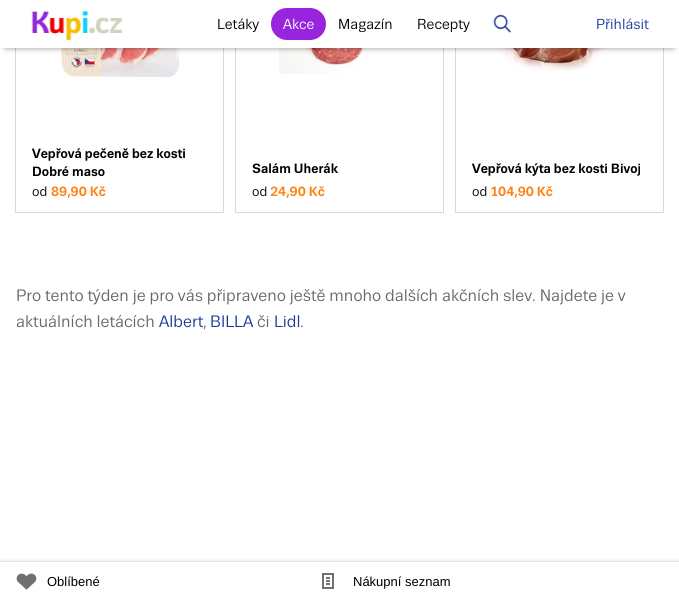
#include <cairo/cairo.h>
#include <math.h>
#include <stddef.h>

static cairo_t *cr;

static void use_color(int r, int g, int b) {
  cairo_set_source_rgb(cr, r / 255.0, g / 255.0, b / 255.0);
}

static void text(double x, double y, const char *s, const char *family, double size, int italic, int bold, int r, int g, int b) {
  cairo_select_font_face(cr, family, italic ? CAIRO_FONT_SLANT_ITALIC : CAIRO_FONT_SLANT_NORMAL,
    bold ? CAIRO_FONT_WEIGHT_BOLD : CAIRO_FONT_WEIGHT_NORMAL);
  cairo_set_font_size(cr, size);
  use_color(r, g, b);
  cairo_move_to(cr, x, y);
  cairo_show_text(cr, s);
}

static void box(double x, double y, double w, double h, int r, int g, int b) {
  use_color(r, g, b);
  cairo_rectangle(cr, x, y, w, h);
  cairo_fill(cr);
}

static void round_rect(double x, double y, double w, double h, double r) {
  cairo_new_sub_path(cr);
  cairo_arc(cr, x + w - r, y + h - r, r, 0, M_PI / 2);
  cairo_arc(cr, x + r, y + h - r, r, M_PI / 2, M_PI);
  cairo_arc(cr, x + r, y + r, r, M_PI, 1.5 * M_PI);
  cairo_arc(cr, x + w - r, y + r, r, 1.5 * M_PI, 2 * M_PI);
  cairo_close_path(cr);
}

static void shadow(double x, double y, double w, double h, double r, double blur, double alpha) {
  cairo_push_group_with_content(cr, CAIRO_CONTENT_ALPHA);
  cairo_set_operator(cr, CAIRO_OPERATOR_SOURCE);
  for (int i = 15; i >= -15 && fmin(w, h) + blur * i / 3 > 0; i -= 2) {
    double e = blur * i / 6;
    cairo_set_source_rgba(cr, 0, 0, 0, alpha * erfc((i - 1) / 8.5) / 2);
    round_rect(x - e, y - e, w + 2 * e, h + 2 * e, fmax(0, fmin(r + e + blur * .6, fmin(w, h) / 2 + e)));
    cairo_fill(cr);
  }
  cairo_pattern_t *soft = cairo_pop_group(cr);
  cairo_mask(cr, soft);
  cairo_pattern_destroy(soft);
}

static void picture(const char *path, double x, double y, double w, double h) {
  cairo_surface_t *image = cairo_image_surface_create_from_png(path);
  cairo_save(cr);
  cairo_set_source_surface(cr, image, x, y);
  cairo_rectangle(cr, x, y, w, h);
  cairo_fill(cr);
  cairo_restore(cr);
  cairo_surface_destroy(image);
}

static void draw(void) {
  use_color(255, 255, 255);
  cairo_paint(cr);
  cairo_rectangle(cr, 15.5, -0.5, 208, 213);
  use_color(217, 217, 217);
  cairo_set_line_width(cr, 1);
  cairo_stroke(cr);
  picture("img_03.png", 60, 48, 120, 29);
  cairo_rectangle(cr, 235.5, -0.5, 208, 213);
  cairo_stroke(cr);
  picture("img_04.png", 279, 48, 85, 26);
  cairo_rectangle(cr, 455.5, -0.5, 208, 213);
  cairo_stroke(cr);
  picture("img_05.png", 499, 48, 120, 23);
  use_color(0, 0, 0);
  shadow(7, 42, 665, 3, 0, 4, 1);
  box(0, 0, 679, 48, 255, 255, 255);
  picture("img_01.png", 31, 10, 92, 31);
  use_color(151, 37, 221);
  round_rect(271, 8, 55, 32, 16);
  cairo_fill(cr);
  picture("img_02.png", 493, 14, 18, 19);
  cairo_save(cr);
  cairo_rectangle(cr, 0, 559, 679, 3);
  cairo_clip(cr);
  use_color(0, 0, 0);
  shadow(0, 562, 679, 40, 0, 2, 0.24);
  cairo_restore(cr);
  picture("img_06.png", 16, 573, 21, 17);
  picture("img_07.png", 322, 573, 12, 16);
  text(217, 29, "Letáky", "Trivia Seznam", 14, 0, 0, 0, 0, 0);
  text(283, 29, "Akce", "Trivia Seznam", 14, 0, 0, 255, 255, 255);
  text(338, 29, "Magazín", "Trivia Seznam", 14, 0, 0, 0, 0, 0);
  text(417, 29, "Recepty", "Trivia Seznam", 14, 0, 0, 0, 0, 0);
  text(596, 29, "Přihlásit", "Trivia Seznam", 14, 0, 0, 24, 56, 156);
  text(32, 158, "Vepřová pečeně bez kosti", "Trivia Seznam", 13, 0, 1, 0, 0, 0);
  text(32, 176, "Dobré maso", "Trivia Seznam", 13, 0, 1, 0, 0, 0);
  text(32, 196, "od", "Trivia Seznam", 13, 0, 0, 0, 0, 0);
  text(51, 196, "89,90 Kč", "Trivia Seznam", 13, 0, 1, 255, 127, 14);
  text(252, 173, "Salám Uherák", "Trivia Seznam", 13, 0, 1, 0, 0, 0);
  text(252, 196, "od", "Trivia Seznam", 13, 0, 0, 0, 0, 0);
  text(270, 196, "24,90 Kč", "Trivia Seznam", 13, 0, 1, 255, 127, 14);
  text(472, 173, "Vepřová kýta bez kosti Bivoj", "Trivia Seznam", 13, 0, 1, 0, 0, 0);
  text(472, 196, "od", "Trivia Seznam", 13, 0, 0, 0, 0, 0);
  text(490, 196, "104,90 Kč", "Trivia Seznam", 13, 0, 1, 255, 127, 14);
  text(16, 301, "Pro tento týden je pro vás připraveno ještě mnoho dalších akčních slev. Najdete je v", "Trivia Seznam", 16, 0, 0, 102, 102, 102);
  text(16, 327, "aktuálních letácích", "Trivia Seznam", 16, 0, 0, 102, 102, 102);
  text(159, 327, "Albert", "Trivia Seznam", 16, 0, 0, 24, 56, 156);
  text(203, 327, ",", "Trivia Seznam", 16, 0, 0, 102, 102, 102);
  text(210, 327, "BILLA", "Trivia Seznam", 16, 0, 0, 24, 56, 156);
  text(257, 327, "či", "Trivia Seznam", 16, 0, 0, 102, 102, 102);
  text(274, 327, "Lidl", "Trivia Seznam", 16, 0, 0, 24, 56, 156);
  text(300, 327, ".", "Trivia Seznam", 16, 0, 0, 102, 102, 102);
  text(47, 586, "Oblíbené", "Liberation Sans", 13, 0, 0, 0, 0, 0);
  text(353, 586, "Nákupní seznam", "Liberation Sans", 13, 0, 0, 0, 0, 0);
}

int main(void) {
  cairo_surface_t *surface = cairo_image_surface_create(CAIRO_FORMAT_RGB24, 679, 601);
  cr = cairo_create(surface);
  cairo_font_options_t *options = cairo_font_options_create();
  cairo_font_options_set_hint_metrics(options, CAIRO_HINT_METRICS_OFF);
  cairo_font_options_set_hint_style(options, CAIRO_HINT_STYLE_NONE);
  cairo_set_font_options(cr, options);
  cairo_set_miter_limit(cr, 4);
  draw();
  cairo_surface_write_to_png(surface, "out.png");
  cairo_font_options_destroy(options);
  cairo_destroy(cr);
  cairo_surface_destroy(surface);
  return 0;
}
